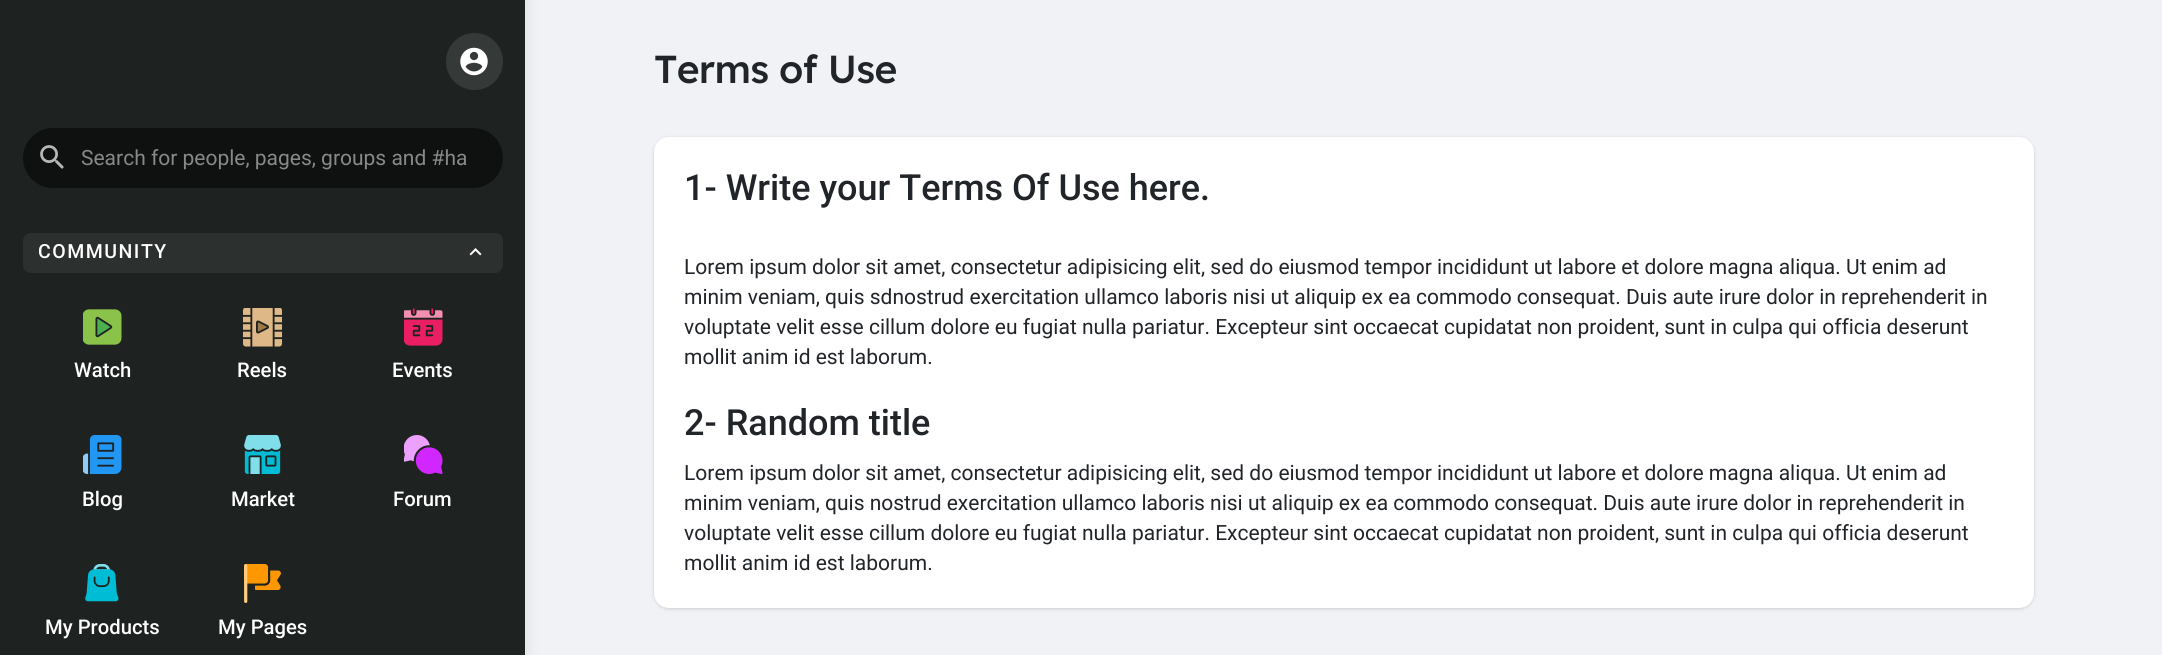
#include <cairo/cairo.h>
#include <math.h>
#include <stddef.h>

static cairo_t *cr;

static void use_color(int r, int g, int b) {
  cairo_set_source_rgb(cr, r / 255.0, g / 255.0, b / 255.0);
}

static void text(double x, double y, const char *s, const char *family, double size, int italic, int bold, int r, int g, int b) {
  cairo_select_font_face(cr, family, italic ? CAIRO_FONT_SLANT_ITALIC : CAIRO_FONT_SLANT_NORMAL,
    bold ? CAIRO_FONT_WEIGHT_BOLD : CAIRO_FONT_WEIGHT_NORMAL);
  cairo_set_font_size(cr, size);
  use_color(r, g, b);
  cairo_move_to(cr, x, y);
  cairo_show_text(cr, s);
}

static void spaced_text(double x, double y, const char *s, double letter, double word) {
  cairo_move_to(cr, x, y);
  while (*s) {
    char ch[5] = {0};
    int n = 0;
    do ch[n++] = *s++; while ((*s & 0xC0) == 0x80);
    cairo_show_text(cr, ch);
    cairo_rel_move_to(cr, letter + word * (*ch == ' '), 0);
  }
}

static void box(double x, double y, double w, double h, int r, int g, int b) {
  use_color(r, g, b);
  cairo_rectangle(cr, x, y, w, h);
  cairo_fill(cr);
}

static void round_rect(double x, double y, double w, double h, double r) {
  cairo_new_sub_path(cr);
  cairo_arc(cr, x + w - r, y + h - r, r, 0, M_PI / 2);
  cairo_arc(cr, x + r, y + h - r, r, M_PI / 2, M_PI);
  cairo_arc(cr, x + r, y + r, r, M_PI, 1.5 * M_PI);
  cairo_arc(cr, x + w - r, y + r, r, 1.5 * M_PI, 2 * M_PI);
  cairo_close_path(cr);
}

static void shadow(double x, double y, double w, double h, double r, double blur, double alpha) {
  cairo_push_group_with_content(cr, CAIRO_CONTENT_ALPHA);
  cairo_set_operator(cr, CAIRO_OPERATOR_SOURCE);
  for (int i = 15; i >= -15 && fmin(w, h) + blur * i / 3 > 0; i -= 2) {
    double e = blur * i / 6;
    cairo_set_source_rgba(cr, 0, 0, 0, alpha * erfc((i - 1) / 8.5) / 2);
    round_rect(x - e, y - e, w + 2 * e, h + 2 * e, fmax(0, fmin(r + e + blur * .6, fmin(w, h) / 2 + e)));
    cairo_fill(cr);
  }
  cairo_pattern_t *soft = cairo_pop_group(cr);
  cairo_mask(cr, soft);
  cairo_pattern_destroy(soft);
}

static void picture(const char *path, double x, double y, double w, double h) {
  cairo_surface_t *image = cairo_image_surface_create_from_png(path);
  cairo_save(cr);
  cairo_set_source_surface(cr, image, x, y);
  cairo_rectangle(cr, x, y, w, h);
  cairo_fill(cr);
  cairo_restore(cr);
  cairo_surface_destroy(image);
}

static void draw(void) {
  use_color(240, 242, 245);
  cairo_paint(cr);
  use_color(0, 0, 0);
  shadow(0, 0, 525, 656, 0, 7.5, 0.1);
  box(0, 0, 525, 655, 30, 35, 33);
  use_color(53, 57, 55);
  cairo_arc(cr, 474.5, 61.5, 28.5, 0, 2 * M_PI);
  cairo_fill(cr);
  picture("img_01.png", 460, 47, 28, 29);
  use_color(15, 17, 16);
  round_rect(23, 128, 480, 60, 30);
  cairo_fill(cr);
  picture("img_02.png", 40, 145, 24, 24);
  use_color(0, 0, 0);
  shadow(654, 138, 1380, 471, 15, 1.5, 0.06);
  shadow(654, 138, 1380, 471, 15, 2, 0.1);
  use_color(255, 255, 255);
  round_rect(654, 137, 1380, 471, 15);
  cairo_fill(cr);
  use_color(44, 48, 46);
  round_rect(23, 233, 480, 40, 8);
  cairo_fill(cr);
  picture("img_03.png", 469, 248, 13, 8);
  picture("img_04.png", 83, 309, 39, 36);
  picture("img_05.png", 243, 308, 39, 39);
  picture("img_06.png", 404, 308, 39, 38);
  picture("img_07.png", 83, 435, 39, 39);
  picture("img_08.png", 244, 435, 37, 39);
  picture("img_09.png", 404, 435, 39, 39);
  picture("img_10.png", 85, 564, 34, 38);
  picture("img_11.png", 244, 564, 37, 39);
  text(81, 165, "Search for people, pages, groups and #ha", "Roboto", 21, 0, 0, 135, 136, 136);
  cairo_select_font_face(cr, "Readex Pro Medium", CAIRO_FONT_SLANT_NORMAL, CAIRO_FONT_WEIGHT_NORMAL);
  cairo_set_font_size(cr, 39);
  use_color(33, 37, 41);
  spaced_text(654, 83, "Terms of Use", -0.75, 0);
  text(684, 200, "1- Write your Terms Of Use here.", "Roboto Medium", 36, 0, 0, 33, 37, 41);
  text(684, 274, "Lorem ipsum dolor sit amet, consectetur adipisicing elit, sed do eiusmod tempor incididunt ut labore et dolore magna aliqua. Ut enim ad", "Roboto", 21, 0, 0, 33, 37, 41);
  text(684, 304, "minim veniam, quis sdnostrud exercitation ullamco laboris nisi ut aliquip ex ea commodo consequat. Duis aute irure dolor in reprehenderit in", "Roboto", 21, 0, 0, 33, 37, 41);
  text(684, 334, "voluptate velit esse cillum dolore eu fugiat nulla pariatur. Excepteur sint occaecat cupidatat non proident, sunt in culpa qui officia deserunt", "Roboto", 21, 0, 0, 33, 37, 41);
  text(684, 364, "mollit anim id est laborum.", "Roboto", 21, 0, 0, 33, 37, 41);
  text(684, 435, "2- Random title", "Roboto Medium", 36, 0, 0, 33, 37, 41);
  text(684, 480, "Lorem ipsum dolor sit amet, consectetur adipisicing elit, sed do eiusmod tempor incididunt ut labore et dolore magna aliqua. Ut enim ad", "Roboto", 21, 0, 0, 33, 37, 41);
  text(684, 510, "minim veniam, quis nostrud exercitation ullamco laboris nisi ut aliquip ex ea commodo consequat. Duis aute irure dolor in reprehenderit in", "Roboto", 21, 0, 0, 33, 37, 41);
  text(684, 540, "voluptate velit esse cillum dolore eu fugiat nulla pariatur. Excepteur sint occaecat cupidatat non proident, sunt in culpa qui officia deserunt", "Roboto", 21, 0, 0, 33, 37, 41);
  text(684, 570, "mollit anim id est laborum.", "Roboto", 21, 0, 0, 33, 37, 41);
  cairo_select_font_face(cr, "Roboto Medium", CAIRO_FONT_SLANT_NORMAL, CAIRO_FONT_WEIGHT_NORMAL);
  cairo_set_font_size(cr, 19.5);
  use_color(255, 255, 255);
  spaced_text(38, 258, "COMMUNITY", 1.5, 0);
  text(74, 377, "Watch", "Roboto Medium", 20.25, 0, 0, 255, 255, 255);
  text(237, 377, "Reels", "Roboto Medium", 20.25, 0, 0, 255, 255, 255);
  text(392, 377, "Events", "Roboto Medium", 20.25, 0, 0, 255, 255, 255);
  text(82, 506, "Blog", "Roboto Medium", 20.25, 0, 0, 255, 255, 255);
  text(231, 506, "Market", "Roboto Medium", 20.25, 0, 0, 255, 255, 255);
  text(393, 506, "Forum", "Roboto Medium", 20.25, 0, 0, 255, 255, 255);
  text(45, 634, "My Products", "Roboto Medium", 20.25, 0, 0, 255, 255, 255);
  text(218, 634, "My Pages", "Roboto Medium", 20.25, 0, 0, 255, 255, 255);
}

int main(void) {
  cairo_surface_t *surface = cairo_image_surface_create(CAIRO_FORMAT_RGB24, 2162, 655);
  cr = cairo_create(surface);
  cairo_font_options_t *options = cairo_font_options_create();
  cairo_font_options_set_hint_metrics(options, CAIRO_HINT_METRICS_OFF);
  cairo_font_options_set_hint_style(options, CAIRO_HINT_STYLE_NONE);
  cairo_set_font_options(cr, options);
  cairo_set_miter_limit(cr, 4);
  draw();
  cairo_surface_write_to_png(surface, "out.png");
  cairo_font_options_destroy(options);
  cairo_destroy(cr);
  cairo_surface_destroy(surface);
  return 0;
}
